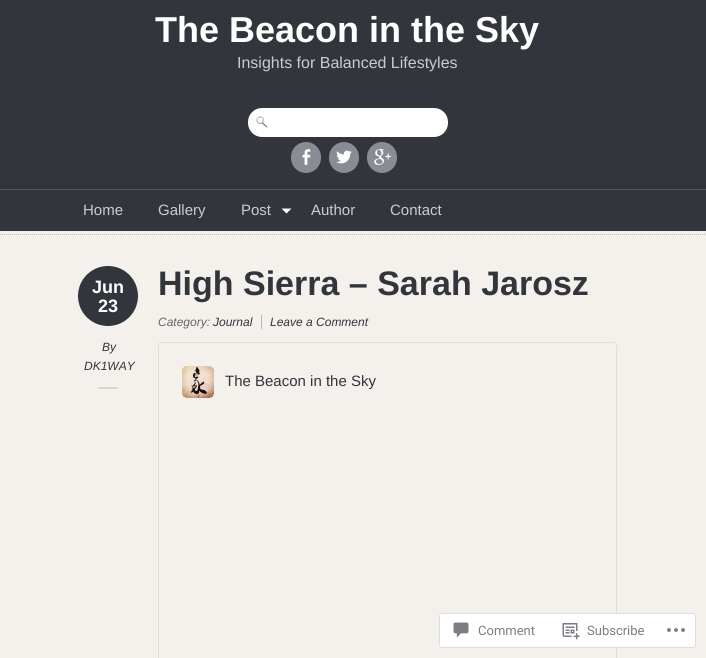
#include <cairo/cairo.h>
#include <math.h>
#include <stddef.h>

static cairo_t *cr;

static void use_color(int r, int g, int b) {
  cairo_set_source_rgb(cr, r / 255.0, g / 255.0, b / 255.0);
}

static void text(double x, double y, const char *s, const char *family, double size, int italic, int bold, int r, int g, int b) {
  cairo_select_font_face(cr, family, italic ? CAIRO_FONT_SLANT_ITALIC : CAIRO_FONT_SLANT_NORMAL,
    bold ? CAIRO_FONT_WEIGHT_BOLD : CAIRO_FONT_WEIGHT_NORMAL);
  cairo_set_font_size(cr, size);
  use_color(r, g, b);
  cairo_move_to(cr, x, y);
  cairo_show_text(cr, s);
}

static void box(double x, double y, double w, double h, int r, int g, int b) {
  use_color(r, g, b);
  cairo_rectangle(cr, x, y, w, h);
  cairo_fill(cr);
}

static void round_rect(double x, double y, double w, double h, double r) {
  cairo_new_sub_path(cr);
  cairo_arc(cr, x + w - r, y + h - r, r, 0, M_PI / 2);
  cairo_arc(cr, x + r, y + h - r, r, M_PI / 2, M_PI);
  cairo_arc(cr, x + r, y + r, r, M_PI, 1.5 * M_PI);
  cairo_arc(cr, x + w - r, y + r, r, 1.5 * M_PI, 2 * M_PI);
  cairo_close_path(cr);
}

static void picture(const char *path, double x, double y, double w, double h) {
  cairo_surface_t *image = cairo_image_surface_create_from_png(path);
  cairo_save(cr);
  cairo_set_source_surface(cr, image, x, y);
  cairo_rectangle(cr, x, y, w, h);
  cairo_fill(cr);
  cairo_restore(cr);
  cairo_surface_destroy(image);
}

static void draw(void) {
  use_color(244, 240, 235);
  cairo_paint(cr);
  box(0, 0, 706, 231, 50, 53, 59);
  use_color(255, 255, 255);
  round_rect(248, 108, 200, 29, 14);
  cairo_fill(cr);
  picture("img_01.png", 256, 116, 12, 12);
  use_color(137, 140, 148);
  round_rect(291, 142, 30, 31, 15);
  cairo_fill(cr);
  picture("img_02.png", 302, 149, 9, 16);
  round_rect(329, 142, 30, 31, 15);
  cairo_fill(cr);
  picture("img_03.png", 336, 150, 16, 14);
  round_rect(367, 142, 30, 31, 15);
  cairo_fill(cr);
  picture("img_04.png", 374, 149, 17, 16);
  box(0, 189, 706, 1, 85, 85, 85);
  use_color(255, 255, 255);
  cairo_new_path(cr);
  cairo_move_to(cr, 281.5, 208.5);
  cairo_line_to(cr, 286.5, 213.5);
  cairo_line_to(cr, 291.5, 208.5);
  cairo_close_path(cr);
  cairo_fill(cr);
  cairo_new_path(cr);
  cairo_move_to(cr, 0, 234.5);
  cairo_line_to(cr, 706, 234.5);
  use_color(186, 184, 182);
  cairo_set_line_width(cr, 1);
  cairo_set_dash(cr, (double[]){1, 1}, 2, 0);
  cairo_stroke(cr);
  use_color(50, 53, 59);
  cairo_arc(cr, 108, 296, 30, 0, 2 * M_PI);
  cairo_fill(cr);
  box(98, 387, 20, 2, 217, 214, 210);
  box(261, 315, 1, 14, 186, 184, 182);
  round_rect(158.5, 342.5, 458, 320, 3.5);
  use_color(224, 223, 220);
  cairo_set_dash(cr, NULL, 0, 0);
  cairo_stroke(cr);
  picture("img_05.png", 182, 366, 32, 32);
  cairo_set_source_rgba(cr, 1, 1, 1, 0.98);
  round_rect(439, 613, 257, 35, 3);
  cairo_fill(cr);
  round_rect(439.5, 613.5, 256, 34, 2.5);
  cairo_set_source_rgba(cr, 0.863, 0.863, 0.871, 0.98);
  cairo_stroke(cr);
  picture("img_06.png", 453, 622, 16, 16);
  picture("img_07.png", 562, 623, 18, 17);
  picture("img_08.png", 667, 628, 18, 4);
  text(155, 42, "The Beacon in the Sky", "Liberation Sans", 36, 0, 1, 255, 255, 255);
  text(237, 68, "Insights for Balanced Lifestyles", "Liberation Sans", 16, 0, 0, 204, 204, 204);
  text(83, 215, "Home", "Liberation Sans", 15, 0, 0, 204, 204, 204);
  text(158, 215, "Gallery", "Liberation Sans", 15, 0, 0, 204, 204, 204);
  text(241, 215, "Post", "Liberation Sans", 15, 0, 0, 204, 204, 204);
  text(311, 215, "Author", "Liberation Sans", 15, 0, 0, 204, 204, 204);
  text(390, 215, "Contact", "Liberation Sans", 15, 0, 0, 204, 204, 204);
  text(92, 293, "Jun", "Liberation Sans", 18, 0, 1, 255, 255, 255);
  text(98, 312, "23", "Liberation Sans", 18, 0, 1, 255, 255, 255);
  text(102, 351, "By", "Liberation Sans", 12, 1, 0, 50, 53, 59);
  text(84, 370, "DK1WAY", "Liberation Sans", 12, 1, 0, 50, 53, 59);
  text(158, 295, "High Sierra – Sarah Jarosz", "Liberation Sans", 34, 0, 1, 50, 53, 59);
  text(158, 326, "Category:", "Liberation Sans", 12, 1, 0, 102, 102, 102);
  text(213, 326, "Journal", "Liberation Sans", 12, 1, 0, 50, 53, 59);
  text(270, 326, "Leave a Comment", "Liberation Sans", 12, 1, 0, 50, 53, 59);
  text(225, 386, "The Beacon in the Sky", "Liberation Sans", 15, 0, 0, 50, 53, 59);
  text(478, 635, "Comment", "Roboto", 13, 0, 0, 122, 126, 132);
  text(587, 635, "Subscribe", "Roboto", 13, 0, 0, 122, 126, 132);
}

int main(void) {
  cairo_surface_t *surface = cairo_image_surface_create(CAIRO_FORMAT_RGB24, 706, 658);
  cr = cairo_create(surface);
  cairo_font_options_t *options = cairo_font_options_create();
  cairo_font_options_set_hint_metrics(options, CAIRO_HINT_METRICS_OFF);
  cairo_font_options_set_hint_style(options, CAIRO_HINT_STYLE_NONE);
  cairo_set_font_options(cr, options);
  cairo_set_miter_limit(cr, 4);
  draw();
  cairo_surface_write_to_png(surface, "out.png");
  cairo_font_options_destroy(options);
  cairo_destroy(cr);
  cairo_surface_destroy(surface);
  return 0;
}
